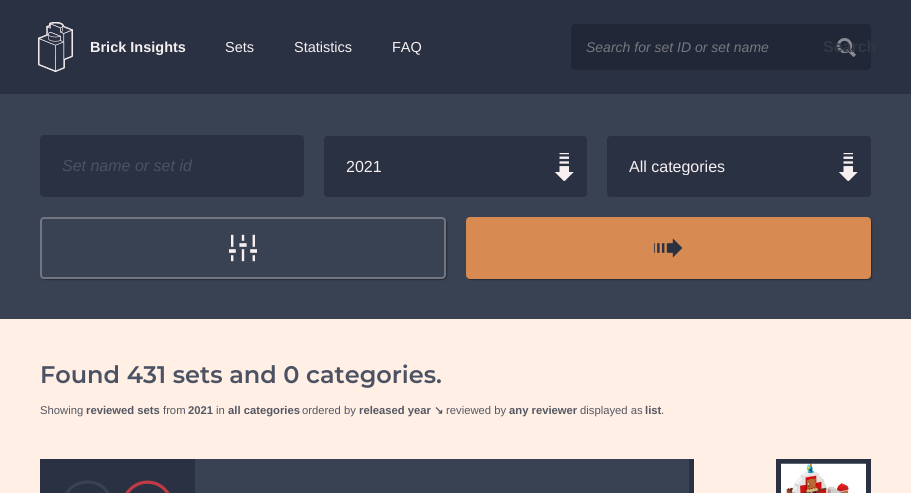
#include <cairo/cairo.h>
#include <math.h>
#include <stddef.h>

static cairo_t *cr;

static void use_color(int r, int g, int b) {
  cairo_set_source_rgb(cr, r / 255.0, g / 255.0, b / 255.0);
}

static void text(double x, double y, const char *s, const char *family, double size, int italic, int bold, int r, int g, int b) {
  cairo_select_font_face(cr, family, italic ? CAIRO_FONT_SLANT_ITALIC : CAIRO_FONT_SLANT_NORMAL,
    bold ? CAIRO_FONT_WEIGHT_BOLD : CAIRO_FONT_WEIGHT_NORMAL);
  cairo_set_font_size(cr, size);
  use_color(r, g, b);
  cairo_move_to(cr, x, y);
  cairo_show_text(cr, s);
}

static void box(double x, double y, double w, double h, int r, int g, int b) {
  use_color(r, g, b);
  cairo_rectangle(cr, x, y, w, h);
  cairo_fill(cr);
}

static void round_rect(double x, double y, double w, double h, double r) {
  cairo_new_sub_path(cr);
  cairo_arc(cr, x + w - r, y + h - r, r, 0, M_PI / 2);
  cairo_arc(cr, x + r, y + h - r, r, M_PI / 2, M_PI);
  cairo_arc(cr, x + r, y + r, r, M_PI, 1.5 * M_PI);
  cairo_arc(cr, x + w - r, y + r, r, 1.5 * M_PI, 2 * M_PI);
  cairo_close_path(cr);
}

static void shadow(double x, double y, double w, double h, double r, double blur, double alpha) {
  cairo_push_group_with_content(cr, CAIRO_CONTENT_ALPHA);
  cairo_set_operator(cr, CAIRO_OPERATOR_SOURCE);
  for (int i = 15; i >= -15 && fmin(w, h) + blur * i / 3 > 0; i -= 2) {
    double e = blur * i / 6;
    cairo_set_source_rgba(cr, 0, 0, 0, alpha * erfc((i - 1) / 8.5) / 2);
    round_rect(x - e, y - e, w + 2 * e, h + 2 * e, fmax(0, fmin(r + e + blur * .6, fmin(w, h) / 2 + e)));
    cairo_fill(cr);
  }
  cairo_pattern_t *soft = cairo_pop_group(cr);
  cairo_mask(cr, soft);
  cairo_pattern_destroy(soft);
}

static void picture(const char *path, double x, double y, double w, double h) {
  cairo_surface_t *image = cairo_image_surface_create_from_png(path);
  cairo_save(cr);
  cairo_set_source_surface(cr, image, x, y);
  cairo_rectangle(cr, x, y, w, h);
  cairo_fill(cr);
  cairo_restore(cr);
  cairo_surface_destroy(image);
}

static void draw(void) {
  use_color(41, 49, 67);
  cairo_paint(cr);
  box(0, 94, 911, 225, 57, 66, 82);
  picture("img_01.png", 38, 22, 35, 50);
  use_color(33, 39, 54);
  round_rect(571, 24, 300, 46, 4);
  cairo_fill(cr);
  picture("img_02.png", 837, 38, 19, 19);
  use_color(41, 49, 67);
  round_rect(41, 136, 262, 60, 3);
  cairo_fill_preserve(cr);
  cairo_stroke(cr);
  round_rect(324, 136, 263, 61, 4);
  cairo_fill(cr);
  picture("img_03.png", 554, 153, 20, 28);
  round_rect(325, 137, 261, 59, 3);
  cairo_stroke(cr);
  round_rect(607, 136, 264, 61, 4);
  cairo_fill(cr);
  picture("img_03.png", 838, 153, 20, 28);
  round_rect(608, 137, 262, 59, 3);
  cairo_stroke(cr);
  cairo_save(cr);
  cairo_set_fill_rule(cr, CAIRO_FILL_RULE_EVEN_ODD);
  cairo_new_path(cr);
  cairo_move_to(cr, 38, 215);
  cairo_line_to(cr, 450, 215);
  cairo_line_to(cr, 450, 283);
  cairo_line_to(cr, 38, 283);
  cairo_close_path(cr);
  cairo_move_to(cr, 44, 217);
  cairo_line_to(cr, 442, 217);
  cairo_curve_to(cr, 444, 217, 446, 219, 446, 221);
  cairo_line_to(cr, 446, 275);
  cairo_curve_to(cr, 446, 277, 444, 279, 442, 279);
  cairo_line_to(cr, 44, 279);
  cairo_curve_to(cr, 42, 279, 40, 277, 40, 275);
  cairo_line_to(cr, 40, 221);
  cairo_curve_to(cr, 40, 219, 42, 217, 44, 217);
  cairo_close_path(cr);
  cairo_clip(cr);
  use_color(0, 0, 0);
  shadow(42, 219, 404, 60, 3, 1, 0.9);
  cairo_restore(cr);
  round_rect(41, 218, 404, 60, 3);
  cairo_set_source_rgba(cr, 0.969, 0.937, 0.941, 0.3);
  cairo_stroke(cr);
  picture("img_04.png", 229, 234, 28, 28);
  use_color(0, 0, 0);
  shadow(468, 219, 403, 60, 3, 1, 0.9);
  use_color(215, 139, 83);
  round_rect(467, 218, 403, 60, 3);
  cairo_fill_preserve(cr);
  cairo_stroke(cr);
  picture("img_05.png", 654, 238, 29, 20);
  box(0, 319, 911, 174, 255, 239, 229);
  box(40, 459, 155, 34, 41, 49, 67);
  cairo_new_path(cr);
  cairo_move_to(cr, 87.5, 482);
  cairo_curve_to(cr, 119.5, 482, 119.5, 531, 87.5, 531);
  cairo_curve_to(cr, 55.5, 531, 55.5, 482, 87.5, 482);
  use_color(57, 66, 82);
  cairo_set_line_width(cr, 3.1);
  cairo_stroke(cr);
  cairo_new_path(cr);
  cairo_move_to(cr, 87.5, 482);
  cairo_curve_to(cr, 119.5, 482, 119.5, 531, 87.5, 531);
  cairo_curve_to(cr, 55.5, 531, 55.5, 482, 87.5, 482);
  use_color(181, 148, 158);
  cairo_set_dash(cr, (double[]){0, 152.78}, 2, 0);
  cairo_stroke(cr);
  picture("img_06.png", 125, 480, 45, 13);
  box(195, 459, 494, 34, 57, 66, 82);
  box(689, 459, 5, 34, 41, 49, 67);
  cairo_rectangle(cr, 778.5, 461.5, 90, 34);
  cairo_set_line_width(cr, 5);
  cairo_set_dash(cr, NULL, 0, 0);
  cairo_stroke(cr);
  picture("img_07.png", 781, 463, 85, 30);
  text(90, 52, "Brick Insights", "Liberation Sans", 14.5, 0, 1, 247, 239, 240);
  text(225, 52, "Sets", "Liberation Sans", 14.5, 0, 0, 247, 239, 240);
  text(294, 52, "Statistics", "Liberation Sans", 14.5, 0, 0, 247, 239, 240);
  text(392, 52, "FAQ", "Liberation Sans", 14.5, 0, 0, 247, 239, 240);
  text(586, 52, "Search for set ID or set name", "Liberation Sans", 14, 1, 0, 119, 119, 128);
  text(823, 52, "Search", "Liberation Sans", 16, 0, 1, 50, 55, 69);
  text(62, 171, "Set name or set id", "Liberation Sans", 16, 1, 0, 74, 82, 99);
  text(346, 172, "2021", "Liberation Sans", 16, 0, 0, 247, 239, 240);
  cairo_save(cr);
  cairo_rectangle(cr, 629, 158, 202, 17);
  cairo_clip(cr);
  text(629, 172, "All categories", "Liberation Sans", 16, 0, 0, 247, 239, 240);
  cairo_restore(cr);
  text(40, 383, "Found 431 sets and 0 categories.", "Montserrat SemiBold", 24, 0, 0, 74, 82, 99);
  text(40, 414, "Showing", "Liberation Sans", 11.25, 0, 0, 84, 87, 99);
  text(86, 414, "reviewed sets", "Liberation Sans", 11.25, 0, 1, 84, 87, 99);
  text(163, 414, "from", "Liberation Sans", 11.25, 0, 0, 84, 87, 99);
  text(188, 414, "2021", "Liberation Sans", 11.25, 0, 1, 84, 87, 99);
  text(216, 414, "in", "Liberation Sans", 11.25, 0, 0, 84, 87, 99);
  text(228, 414, "all categories", "Liberation Sans", 11.25, 0, 1, 84, 87, 99);
  text(302, 414, "ordered by", "Liberation Sans", 11.25, 0, 0, 84, 87, 99);
  text(359, 414, "released year", "Liberation Sans", 11.25, 0, 1, 84, 87, 99);
  text(434, 414, "↘", "DejaVu Sans", 11.25, 0, 1, 84, 87, 99);
  text(446, 414, "reviewed by", "Liberation Sans", 11.25, 0, 0, 84, 87, 99);
  text(509, 414, "any reviewer", "Liberation Sans", 11.25, 0, 1, 84, 87, 99);
  text(580, 414, "displayed as", "Liberation Sans", 11.25, 0, 0, 84, 87, 99);
  text(645, 414, "list", "Liberation Sans", 11.25, 0, 1, 84, 87, 99);
  text(661, 414, ".", "Liberation Sans", 11.25, 0, 0, 84, 87, 99);
}

int main(void) {
  cairo_surface_t *surface = cairo_image_surface_create(CAIRO_FORMAT_RGB24, 911, 493);
  cr = cairo_create(surface);
  cairo_font_options_t *options = cairo_font_options_create();
  cairo_font_options_set_hint_metrics(options, CAIRO_HINT_METRICS_OFF);
  cairo_font_options_set_hint_style(options, CAIRO_HINT_STYLE_NONE);
  cairo_set_font_options(cr, options);
  cairo_set_miter_limit(cr, 4);
  draw();
  cairo_surface_write_to_png(surface, "out.png");
  cairo_font_options_destroy(options);
  cairo_destroy(cr);
  cairo_surface_destroy(surface);
  return 0;
}
